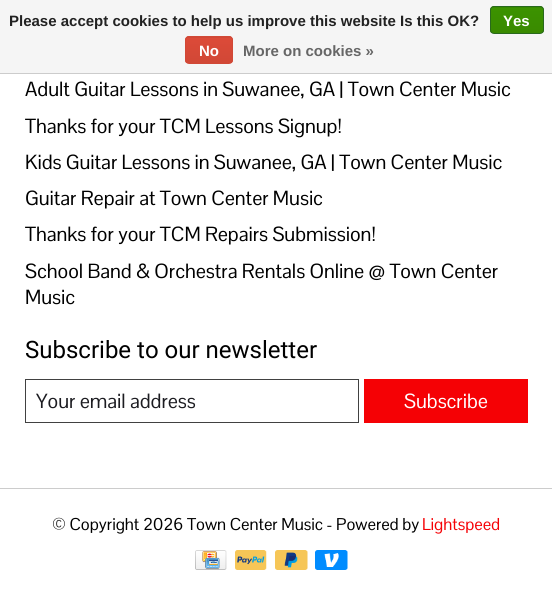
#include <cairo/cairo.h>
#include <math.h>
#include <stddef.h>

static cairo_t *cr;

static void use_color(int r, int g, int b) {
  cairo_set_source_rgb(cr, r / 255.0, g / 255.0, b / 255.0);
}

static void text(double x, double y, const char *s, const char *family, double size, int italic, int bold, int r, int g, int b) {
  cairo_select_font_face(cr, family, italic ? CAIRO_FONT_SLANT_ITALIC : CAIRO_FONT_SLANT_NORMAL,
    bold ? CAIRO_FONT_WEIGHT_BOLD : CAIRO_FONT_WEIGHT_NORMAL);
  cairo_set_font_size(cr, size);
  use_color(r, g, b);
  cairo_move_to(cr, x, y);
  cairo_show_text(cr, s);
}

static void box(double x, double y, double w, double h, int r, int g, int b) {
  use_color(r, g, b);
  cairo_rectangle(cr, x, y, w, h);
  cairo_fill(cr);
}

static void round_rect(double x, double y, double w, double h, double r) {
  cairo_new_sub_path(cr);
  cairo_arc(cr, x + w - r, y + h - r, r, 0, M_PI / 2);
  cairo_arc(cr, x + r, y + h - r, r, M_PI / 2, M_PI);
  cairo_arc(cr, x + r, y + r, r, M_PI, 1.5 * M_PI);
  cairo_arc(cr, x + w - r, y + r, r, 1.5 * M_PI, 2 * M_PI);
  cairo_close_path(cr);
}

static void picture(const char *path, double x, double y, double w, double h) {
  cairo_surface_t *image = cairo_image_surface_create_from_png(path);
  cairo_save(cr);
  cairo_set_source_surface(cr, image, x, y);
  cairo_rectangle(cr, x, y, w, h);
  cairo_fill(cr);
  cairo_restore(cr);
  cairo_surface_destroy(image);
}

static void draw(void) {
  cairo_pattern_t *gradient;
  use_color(255, 255, 255);
  cairo_paint(cr);
  box(0, 0, 552, 73, 245, 245, 245);
  box(0, 73, 552, 1, 204, 204, 204);
  cairo_save(cr);
  round_rect(490, 6, 54, 28, 4);
  cairo_clip(cr);
  gradient = cairo_pattern_create_linear(517, -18, 517, 7.5);
  cairo_pattern_add_color_stop_rgba(gradient, 0, 0.235, 0.576, 0, 1);
  cairo_pattern_add_color_stop_rgba(gradient, 1, 0.224, 0.541, 0, 1);
  cairo_set_source(cr, gradient);
  cairo_pattern_destroy(gradient);
  cairo_rectangle(cr, 490, 6, 54, 2);
  cairo_fill(cr);
  gradient = cairo_pattern_create_linear(517, 7.5, 517, 33);
  cairo_pattern_add_color_stop_rgba(gradient, 0, 0.235, 0.576, 0, 1);
  cairo_pattern_add_color_stop_rgba(gradient, 1, 0.224, 0.541, 0, 1);
  cairo_set_source(cr, gradient);
  cairo_pattern_destroy(gradient);
  cairo_rectangle(cr, 490, 8, 54, 25);
  cairo_fill(cr);
  cairo_restore(cr);
  round_rect(490.5, 6.5, 53, 27, 3.5);
  use_color(41, 105, 29);
  cairo_set_line_width(cr, 1);
  cairo_stroke(cr);
  cairo_save(cr);
  round_rect(185, 36, 48, 28, 4);
  cairo_clip(cr);
  gradient = cairo_pattern_create_linear(209, 12, 209, 38);
  cairo_pattern_add_color_stop_rgba(gradient, 0, 0.863, 0.29, 0.22, 1);
  cairo_pattern_add_color_stop_rgba(gradient, 1, 0.82, 0.282, 0.212, 1);
  cairo_set_source(cr, gradient);
  cairo_pattern_destroy(gradient);
  cairo_rectangle(cr, 185, 36, 48, 2);
  cairo_fill(cr);
  gradient = cairo_pattern_create_linear(209, 38, 209, 63);
  cairo_pattern_add_color_stop_rgba(gradient, 0, 0.863, 0.29, 0.22, 1);
  cairo_pattern_add_color_stop_rgba(gradient, 1, 0.82, 0.282, 0.212, 1);
  cairo_set_source(cr, gradient);
  cairo_pattern_destroy(gradient);
  cairo_rectangle(cr, 185, 38, 48, 25);
  cairo_fill(cr);
  cairo_restore(cr);
  round_rect(185.5, 36.5, 47, 27, 3.5);
  use_color(209, 72, 54);
  cairo_stroke(cr);
  cairo_rectangle(cr, 25.5, 379.5, 333, 43);
  use_color(65, 65, 65);
  cairo_stroke(cr);
  box(364, 379, 164, 44, 245, 1, 5);
  box(0, 488, 552, 1, 204, 204, 204);
  picture("img_01.png", 195, 550, 32, 20);
  picture("img_02.png", 235, 550, 32, 20);
  picture("img_03.png", 275, 550, 33, 20);
  picture("img_04.png", 315, 550, 33, 20);
  text(9, 26, "Please accept cookies to help us improve this website Is this OK?", "Liberation Sans", 15, 0, 1, 34, 34, 34);
  text(503, 26, "Yes", "Liberation Sans", 15, 0, 1, 255, 255, 255);
  text(199, 56, "No", "Liberation Sans", 15, 0, 1, 255, 255, 255);
  text(243, 56, "More on cookies »", "Liberation Sans", 15, 0, 1, 102, 102, 102);
  text(25, 96, "Adult Guitar Lessons in Suwanee, GA | Town Center Music", "Pontano Sans", 20, 0, 0, 0, 0, 0);
  text(25, 133, "Thanks for your TCM Lessons Signup!", "Pontano Sans", 20, 0, 0, 0, 0, 0);
  text(25, 169, "Kids Guitar Lessons in Suwanee, GA | Town Center Music", "Pontano Sans", 20, 0, 0, 0, 0, 0);
  text(25, 205, "Guitar Repair at Town Center Music", "Pontano Sans", 20, 0, 0, 0, 0, 0);
  text(25, 241, "Thanks for your TCM Repairs Submission!", "Pontano Sans", 20, 0, 0, 0, 0, 0);
  text(25, 278, "School Band & Orchestra Rentals Online @ Town Center", "Pontano Sans", 20, 0, 0, 0, 0, 0);
  text(25, 304, "Music", "Pontano Sans", 20, 0, 0, 0, 0, 0);
  text(25, 358, "Subscribe to our newsletter", "Roboto", 24, 0, 0, 0, 0, 0);
  text(36, 408, "Your email address", "Pontano Sans", 20, 0, 0, 28, 28, 33);
  text(404, 408, "Subscribe", "Pontano Sans", 20, 0, 0, 255, 255, 255);
  text(52, 530, "© Copyright 2026 Town Center Music - Powered by", "Pontano Sans", 16.7, 0, 0, 0, 0, 0);
  text(422, 530, "Lightspeed", "Pontano Sans", 16.7, 0, 0, 245, 1, 5);
}

int main(void) {
  cairo_surface_t *surface = cairo_image_surface_create(CAIRO_FORMAT_RGB24, 552, 599);
  cr = cairo_create(surface);
  cairo_font_options_t *options = cairo_font_options_create();
  cairo_font_options_set_hint_metrics(options, CAIRO_HINT_METRICS_OFF);
  cairo_font_options_set_hint_style(options, CAIRO_HINT_STYLE_NONE);
  cairo_set_font_options(cr, options);
  cairo_set_miter_limit(cr, 4);
  draw();
  cairo_surface_write_to_png(surface, "out.png");
  cairo_font_options_destroy(options);
  cairo_destroy(cr);
  cairo_surface_destroy(surface);
  return 0;
}
